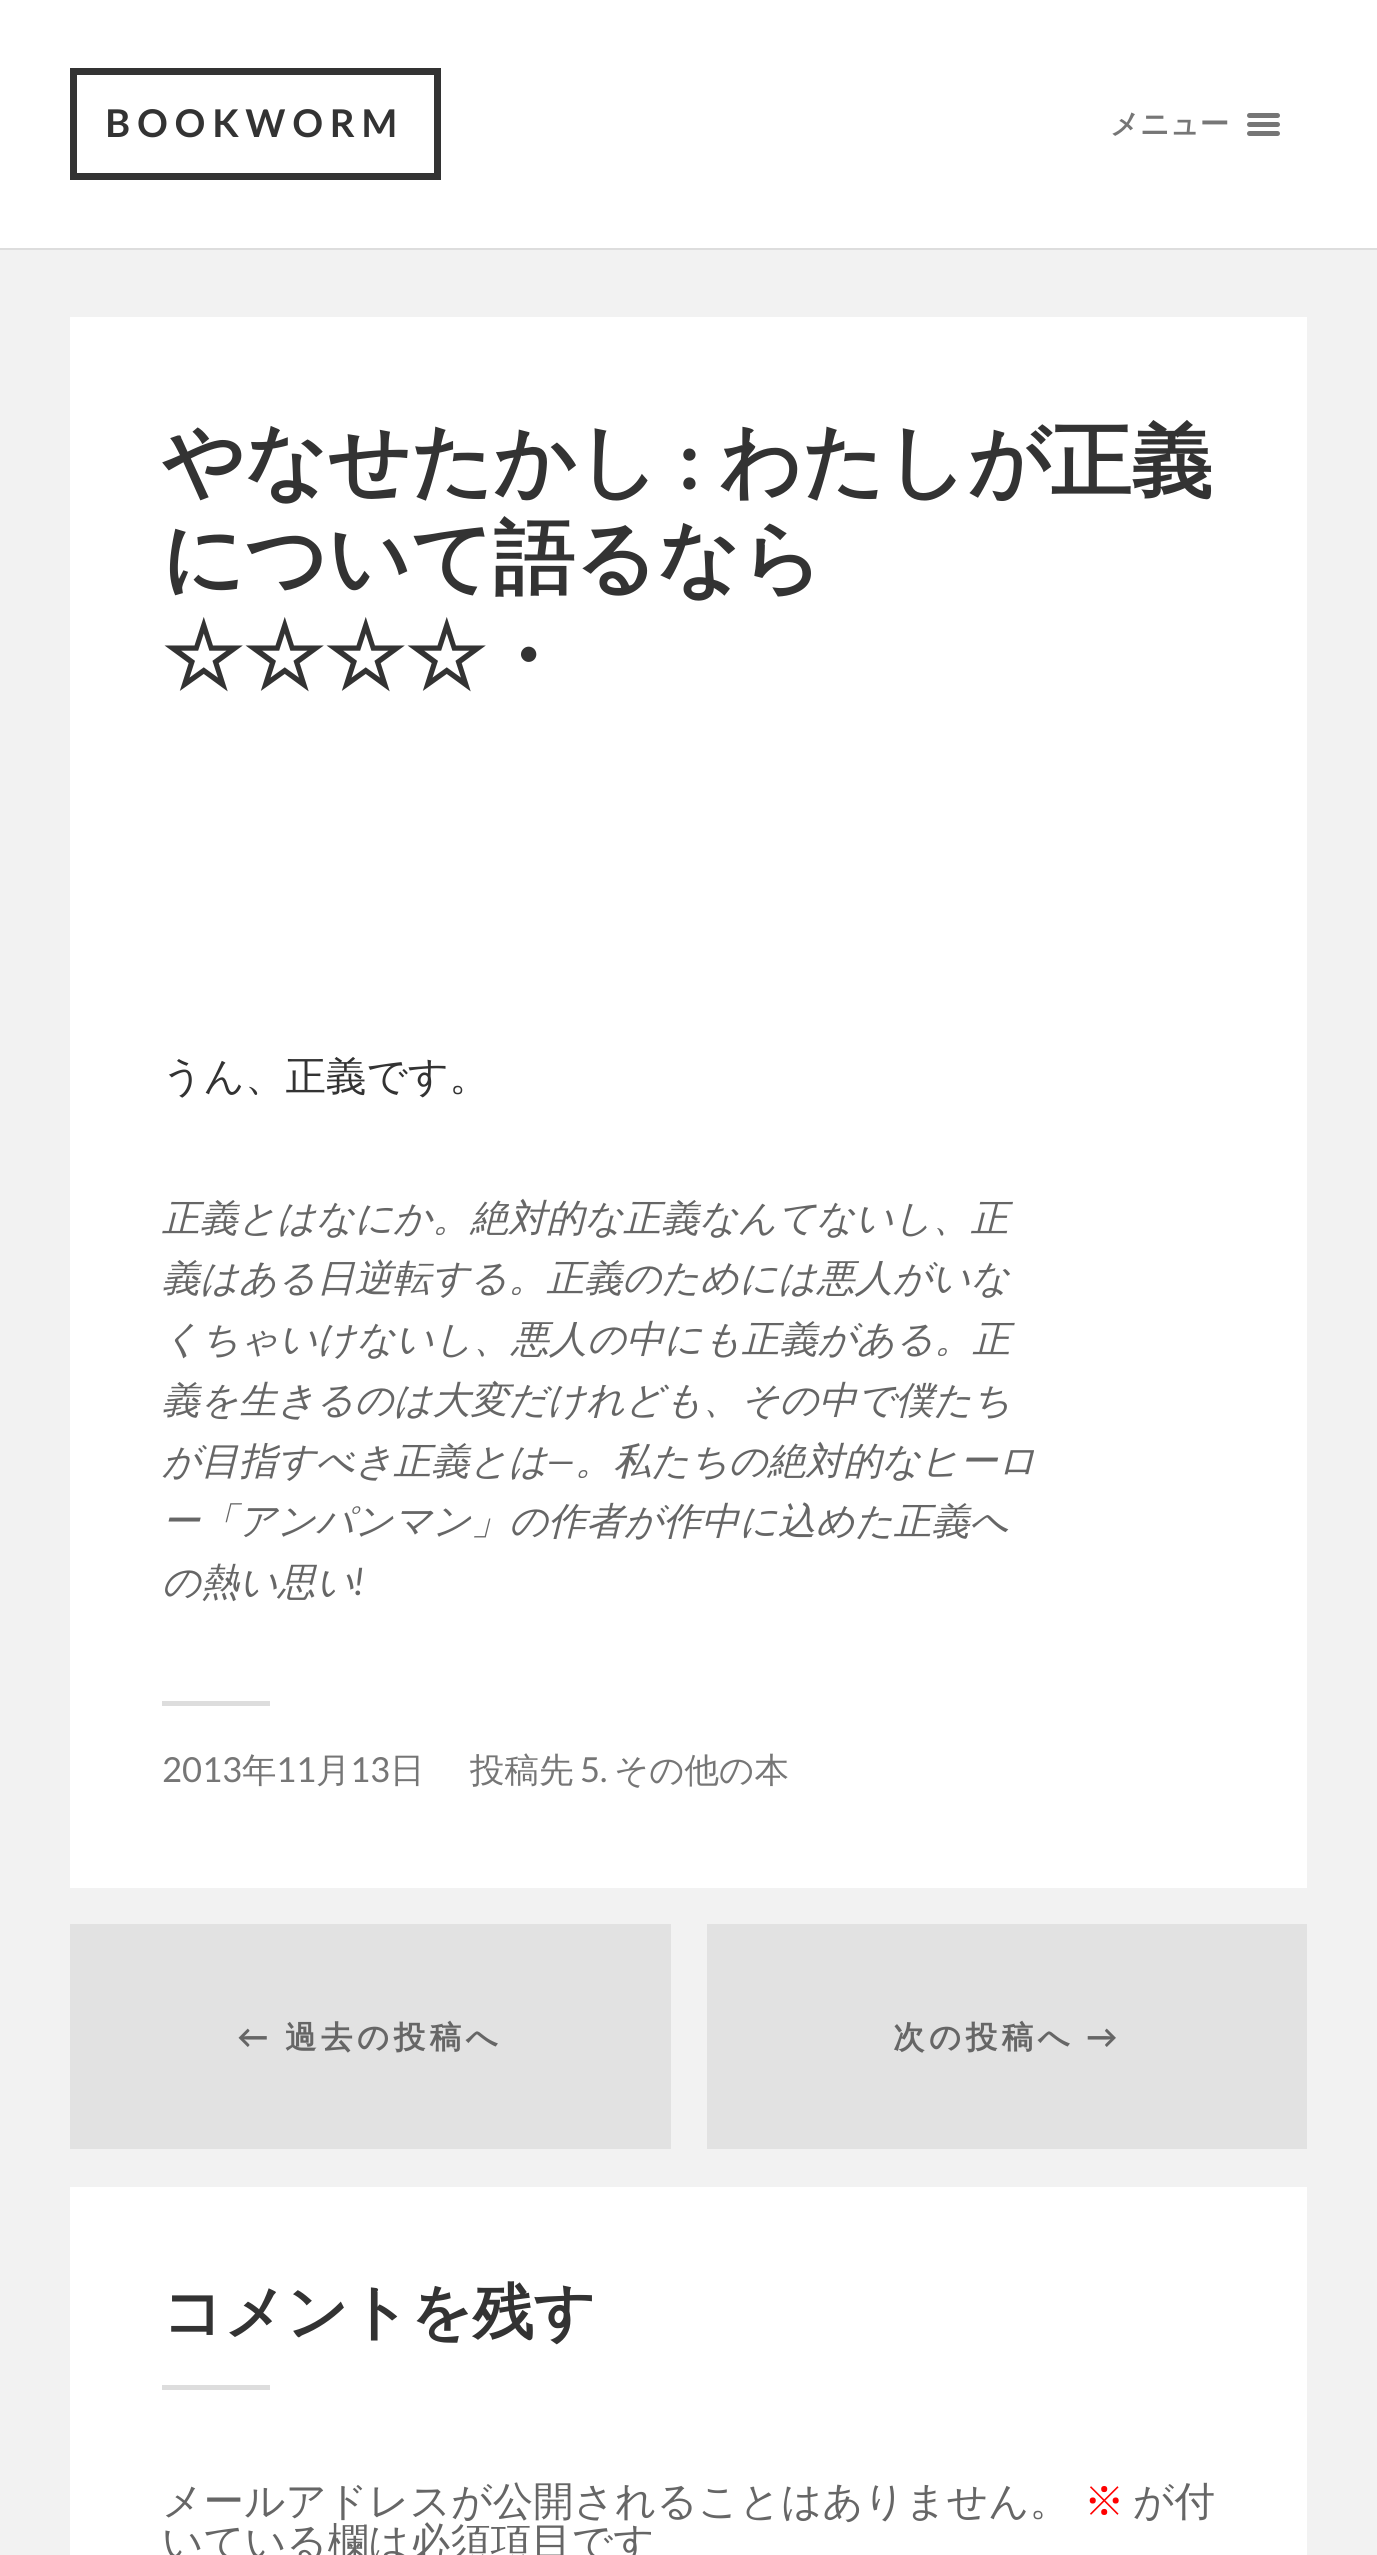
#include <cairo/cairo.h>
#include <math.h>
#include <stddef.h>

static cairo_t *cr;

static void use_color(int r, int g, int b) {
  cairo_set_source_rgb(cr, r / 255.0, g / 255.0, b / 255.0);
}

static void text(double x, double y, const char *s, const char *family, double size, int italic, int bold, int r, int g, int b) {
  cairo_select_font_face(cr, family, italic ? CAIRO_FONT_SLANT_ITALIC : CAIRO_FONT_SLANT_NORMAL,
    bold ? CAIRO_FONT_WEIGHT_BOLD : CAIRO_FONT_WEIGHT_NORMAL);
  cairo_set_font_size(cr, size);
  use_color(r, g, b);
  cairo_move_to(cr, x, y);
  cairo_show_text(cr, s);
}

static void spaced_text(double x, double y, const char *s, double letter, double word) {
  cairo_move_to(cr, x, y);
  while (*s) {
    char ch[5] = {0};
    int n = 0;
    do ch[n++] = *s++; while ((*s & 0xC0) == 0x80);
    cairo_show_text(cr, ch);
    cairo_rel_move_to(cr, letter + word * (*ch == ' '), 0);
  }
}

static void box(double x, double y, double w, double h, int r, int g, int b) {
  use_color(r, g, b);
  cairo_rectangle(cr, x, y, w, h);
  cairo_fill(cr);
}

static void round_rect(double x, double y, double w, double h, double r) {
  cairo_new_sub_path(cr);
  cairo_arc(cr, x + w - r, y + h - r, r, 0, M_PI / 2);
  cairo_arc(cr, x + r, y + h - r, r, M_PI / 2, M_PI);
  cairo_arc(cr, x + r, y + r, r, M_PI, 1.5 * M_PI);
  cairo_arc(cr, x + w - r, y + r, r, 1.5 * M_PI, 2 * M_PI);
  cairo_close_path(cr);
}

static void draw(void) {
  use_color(242, 242, 242);
  cairo_paint(cr);
  box(0, 0, 1377, 248, 255, 255, 255);
  box(0, 248, 1377, 2, 221, 221, 221);
  cairo_rectangle(cr, 73.5, 71.5, 364, 105);
  use_color(51, 51, 51);
  cairo_set_line_width(cr, 7);
  cairo_stroke(cr);
  use_color(118, 118, 118);
  round_rect(1247, 113, 33, 5, 2.5);
  cairo_fill(cr);
  round_rect(1247, 122, 33, 5, 2.5);
  cairo_fill(cr);
  round_rect(1247, 131, 33, 5, 2.5);
  cairo_fill(cr);
  box(70, 317, 1237, 2238, 255, 255, 255);
  box(162, 1701, 108, 5, 221, 221, 221);
  box(70, 1888, 1237, 299, 242, 242, 242);
  box(70, 1924, 601, 225, 226, 226, 226);
  box(707, 1924, 600, 225, 226, 226, 226);
  box(162, 2385, 108, 5, 221, 221, 221);
  cairo_select_font_face(cr, "Lato", CAIRO_FONT_SLANT_NORMAL, CAIRO_FONT_WEIGHT_BOLD);
  cairo_set_font_size(cr, 38.25);
  use_color(51, 51, 51);
  spaced_text(105, 137, "BOOKWORM", 6.75, 0);
  text(1110, 134, "メニュー", "WenQuanYi Zen Hei", 29.25, 0, 1, 118, 118, 118);
  text(162, 489, "やなせたかし", "WenQuanYi Zen Hei", 81, 0, 1, 51, 51, 51);
  text(679, 489, ":", "Lato", 81, 0, 1, 51, 51, 51);
  text(719, 489, "わたしが正義", "WenQuanYi Zen Hei", 81, 0, 1, 51, 51, 51);
  text(162, 586, "について語るなら", "WenQuanYi Zen Hei", 81, 0, 1, 51, 51, 51);
  text(162, 684, "☆☆☆☆・", "WenQuanYi Zen Hei", 81, 0, 1, 51, 51, 51);
  text(162, 1090, "うん、正義です。", "WenQuanYi Zen Hei Medium", 40.5, 0, 0, 51, 51, 51);
  text(162, 1231, "正義とはなにか。絶対的な正義なんてないし、正", "WenQuanYi Zen Hei Medium", 38, 1, 0, 102, 102, 102);
  text(162, 1291, "義はある日逆転する。正義のためには悪人がいな", "WenQuanYi Zen Hei Medium", 38, 1, 0, 102, 102, 102);
  text(162, 1352, "くちゃいけないし、悪人の中にも正義がある。正", "WenQuanYi Zen Hei Medium", 38, 1, 0, 102, 102, 102);
  text(162, 1413, "義を生きるのは大変だけれども、その中で僕たち", "WenQuanYi Zen Hei Medium", 38, 1, 0, 102, 102, 102);
  text(162, 1474, "が目指すべき正義とは", "WenQuanYi Zen Hei Medium", 38, 1, 0, 102, 102, 102);
  text(547, 1474, "―", "Lato", 38, 1, 0, 102, 102, 102);
  text(575, 1474, "。私たちの絶対的なヒーロ", "WenQuanYi Zen Hei Medium", 38, 1, 0, 102, 102, 102);
  text(162, 1534, "ー「アンパンマン」の作者が作中に込めた正義へ", "WenQuanYi Zen Hei Medium", 38, 1, 0, 102, 102, 102);
  text(162, 1595, "の熱い思い", "WenQuanYi Zen Hei Medium", 38, 1, 0, 102, 102, 102);
  text(354, 1595, "!", "Lato", 38, 1, 0, 102, 102, 102);
  text(162, 1782, "2013", "Lato", 34.5, 0, 0, 118, 118, 118);
  text(242, 1782, "年", "WenQuanYi Zen Hei Medium", 34.5, 0, 0, 118, 118, 118);
  text(276, 1782, "11", "Lato", 34.5, 0, 0, 118, 118, 118);
  text(316, 1782, "月", "WenQuanYi Zen Hei Medium", 34.5, 0, 0, 118, 118, 118);
  text(350, 1782, "13", "Lato", 34.5, 0, 0, 118, 118, 118);
  text(390, 1782, "日", "WenQuanYi Zen Hei Medium", 34.5, 0, 0, 118, 118, 118);
  text(470, 1782, "投稿先", "WenQuanYi Zen Hei Medium", 34.5, 0, 0, 118, 118, 118);
  text(580, 1782, "5.", "Lato", 34.5, 0, 0, 118, 118, 118);
  text(614, 1782, "その他の本", "WenQuanYi Zen Hei Medium", 34.5, 0, 0, 118, 118, 118);
  cairo_select_font_face(cr, "Lato", CAIRO_FONT_SLANT_NORMAL, CAIRO_FONT_WEIGHT_BOLD);
  cairo_set_font_size(cr, 31.5);
  use_color(102, 102, 102);
  spaced_text(237, 2048, "←", 4.5, 0);
  cairo_select_font_face(cr, "WenQuanYi Zen Hei", CAIRO_FONT_SLANT_NORMAL, CAIRO_FONT_WEIGHT_BOLD);
  spaced_text(285, 2048, "過去の投稿へ", 4.5, 0);
  spaced_text(893, 2048, "次の投稿へ", 4.5, 0);
  cairo_select_font_face(cr, "Lato", CAIRO_FONT_SLANT_NORMAL, CAIRO_FONT_WEIGHT_BOLD);
  spaced_text(1086, 2048, "→", 4.5, 0);
  text(162, 2333, "コメントを残す", "WenQuanYi Zen Hei", 60.75, 0, 1, 51, 51, 51);
  text(162, 2515, "メールアドレスが公開されることはありません。", "WenQuanYi Zen Hei Medium", 40.5, 0, 0, 102, 102, 102);
  text(1084, 2515, "※", "WenQuanYi Zen Hei Medium", 40.5, 0, 0, 255, 0, 0);
  text(1133, 2515, "が付", "WenQuanYi Zen Hei Medium", 40.5, 0, 0, 102, 102, 102);
  text(162, 2556, "いている欄は必須項目です", "WenQuanYi Zen Hei Medium", 40.5, 0, 0, 102, 102, 102);
}

int main(void) {
  cairo_surface_t *surface = cairo_image_surface_create(CAIRO_FORMAT_RGB24, 1377, 2555);
  cr = cairo_create(surface);
  cairo_font_options_t *options = cairo_font_options_create();
  cairo_font_options_set_hint_metrics(options, CAIRO_HINT_METRICS_OFF);
  cairo_font_options_set_hint_style(options, CAIRO_HINT_STYLE_NONE);
  cairo_set_font_options(cr, options);
  cairo_set_miter_limit(cr, 4);
  draw();
  cairo_surface_write_to_png(surface, "out.png");
  cairo_font_options_destroy(options);
  cairo_destroy(cr);
  cairo_surface_destroy(surface);
  return 0;
}
